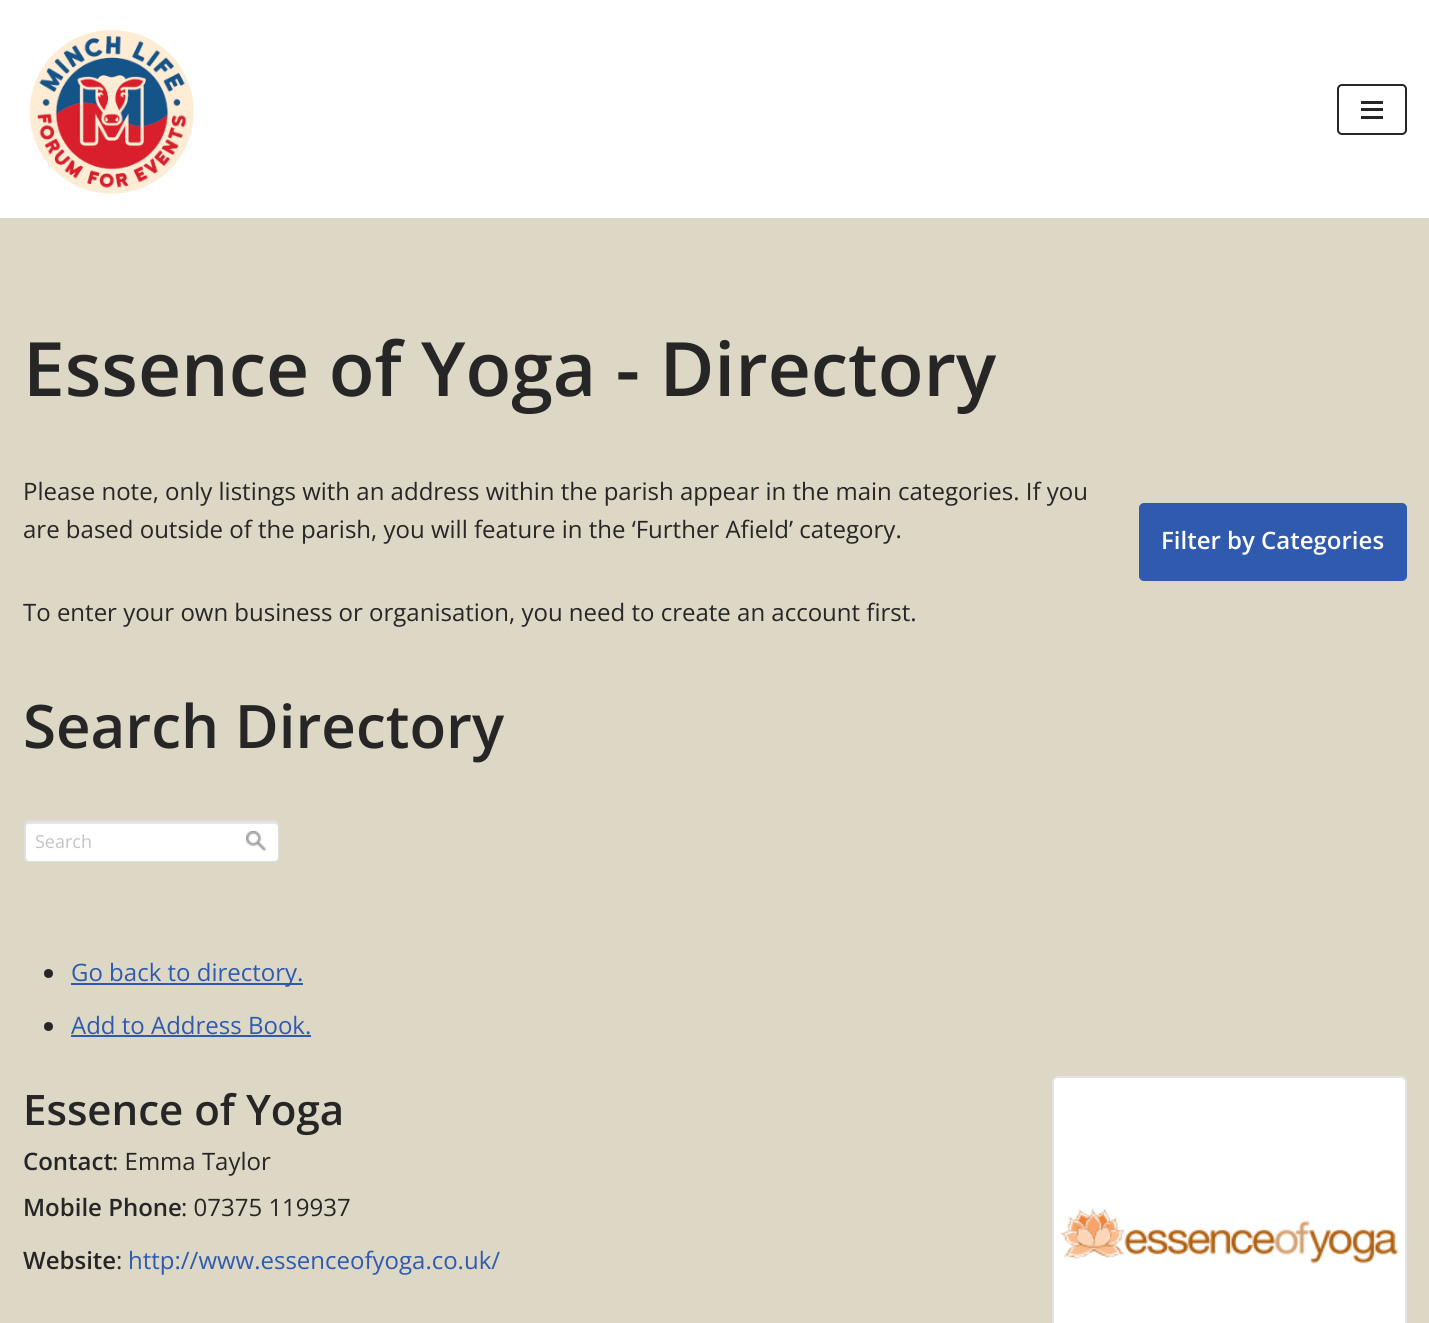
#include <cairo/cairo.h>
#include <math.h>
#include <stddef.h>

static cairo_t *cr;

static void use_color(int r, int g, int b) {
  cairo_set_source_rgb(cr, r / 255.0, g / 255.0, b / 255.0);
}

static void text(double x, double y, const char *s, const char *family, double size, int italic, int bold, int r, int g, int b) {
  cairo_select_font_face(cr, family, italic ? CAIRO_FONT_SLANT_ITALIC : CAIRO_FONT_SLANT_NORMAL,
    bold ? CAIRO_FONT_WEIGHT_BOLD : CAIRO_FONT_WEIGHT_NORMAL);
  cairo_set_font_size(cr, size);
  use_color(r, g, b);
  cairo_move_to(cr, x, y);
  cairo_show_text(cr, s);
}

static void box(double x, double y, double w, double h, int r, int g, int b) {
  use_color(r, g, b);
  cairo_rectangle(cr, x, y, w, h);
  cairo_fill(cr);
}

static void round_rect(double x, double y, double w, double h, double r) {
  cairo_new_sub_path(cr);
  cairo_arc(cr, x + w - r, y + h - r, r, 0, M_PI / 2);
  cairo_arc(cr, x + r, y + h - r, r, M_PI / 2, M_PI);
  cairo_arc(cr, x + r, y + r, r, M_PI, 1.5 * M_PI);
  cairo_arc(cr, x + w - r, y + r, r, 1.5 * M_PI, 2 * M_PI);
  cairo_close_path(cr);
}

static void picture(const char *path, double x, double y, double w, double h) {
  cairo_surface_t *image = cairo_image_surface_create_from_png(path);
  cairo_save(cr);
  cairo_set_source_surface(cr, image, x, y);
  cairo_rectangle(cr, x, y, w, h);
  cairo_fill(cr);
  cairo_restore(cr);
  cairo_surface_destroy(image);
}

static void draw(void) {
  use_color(220, 216, 197);
  cairo_paint(cr);
  box(0, 0, 1429, 218, 255, 255, 255);
  picture("img_01.png", 29, 30, 165, 164);
  round_rect(1338, 85, 68, 49, 4);
  use_color(39, 38, 38);
  cairo_stroke(cr);
  box(1361, 101, 22, 3, 39, 38, 38);
  box(1361, 108, 22, 3, 39, 38, 38);
  box(1361, 116, 22, 3, 39, 38, 38);
  use_color(47, 90, 174);
  round_rect(1139, 503, 268, 78, 5);
  cairo_fill(cr);
  use_color(255, 255, 255);
  cairo_new_path(cr);
  cairo_move_to(cr, 29, 822);
  cairo_line_to(cr, 234, 822);
  cairo_line_to(cr, 234, 861);
  cairo_line_to(cr, 29, 861);
  cairo_curve_to(cr, 27.5, 861, 26, 859.5, 26, 858);
  cairo_line_to(cr, 26, 825);
  cairo_curve_to(cr, 26, 823.5, 27.5, 822, 29, 822);
  cairo_close_path(cr);
  cairo_fill(cr);
  cairo_set_source_rgba(cr, 0, 0, 0, 0.1);
  cairo_new_path(cr);
  cairo_move_to(cr, 28, 824);
  cairo_line_to(cr, 234, 824);
  cairo_line_to(cr, 234, 822);
  cairo_line_to(cr, 29, 822);
  cairo_curve_to(cr, 27, 822, 26, 823, 26, 825);
  cairo_line_to(cr, 26, 826);
  cairo_curve_to(cr, 26, 825, 27, 824, 28, 824);
  cairo_close_path(cr);
  cairo_fill(cr);
  use_color(223, 223, 223);
  cairo_set_fill_rule(cr, CAIRO_FILL_RULE_EVEN_ODD);
  cairo_new_path(cr);
  cairo_move_to(cr, 28, 820);
  cairo_line_to(cr, 234, 820);
  cairo_line_to(cr, 234, 862);
  cairo_line_to(cr, 28, 862);
  cairo_curve_to(cr, 26, 862, 24, 860, 24, 858);
  cairo_line_to(cr, 24, 825);
  cairo_curve_to(cr, 24, 823, 26, 820, 28, 820);
  cairo_close_path(cr);
  cairo_move_to(cr, 28, 822);
  cairo_line_to(cr, 234, 822);
  cairo_line_to(cr, 234, 861);
  cairo_line_to(cr, 28, 861);
  cairo_curve_to(cr, 27, 861, 26, 860, 26, 858);
  cairo_line_to(cr, 26, 825);
  cairo_curve_to(cr, 26, 823, 27, 822, 28, 822);
  cairo_close_path(cr);
  cairo_fill(cr);
  use_color(255, 255, 255);
  cairo_new_path(cr);
  cairo_move_to(cr, 234, 822);
  cairo_line_to(cr, 275, 822);
  cairo_curve_to(cr, 276.5, 822, 278, 823.5, 278, 825);
  cairo_line_to(cr, 278, 858);
  cairo_curve_to(cr, 278, 859.5, 276.5, 861, 275, 861);
  cairo_line_to(cr, 234, 861);
  cairo_close_path(cr);
  cairo_fill(cr);
  picture("img_02.png", 246, 831, 20, 20);
  cairo_set_source_rgba(cr, 0, 0, 0, 0.1);
  cairo_set_fill_rule(cr, CAIRO_FILL_RULE_WINDING);
  cairo_new_path(cr);
  cairo_move_to(cr, 234, 824);
  cairo_line_to(cr, 276, 824);
  cairo_line_to(cr, 278, 826);
  cairo_line_to(cr, 278, 825);
  cairo_curve_to(cr, 278, 823, 277, 822, 275, 822);
  cairo_line_to(cr, 234, 822);
  cairo_close_path(cr);
  cairo_fill(cr);
  use_color(223, 223, 223);
  cairo_set_fill_rule(cr, CAIRO_FILL_RULE_EVEN_ODD);
  cairo_new_path(cr);
  cairo_move_to(cr, 234, 820);
  cairo_line_to(cr, 274, 820);
  cairo_curve_to(cr, 277, 820, 279, 823, 279, 825);
  cairo_line_to(cr, 279, 858);
  cairo_curve_to(cr, 279, 860, 277, 862, 274, 862);
  cairo_line_to(cr, 234, 862);
  cairo_close_path(cr);
  cairo_move_to(cr, 234, 822);
  cairo_line_to(cr, 274, 822);
  cairo_curve_to(cr, 276, 822, 278, 823, 278, 825);
  cairo_line_to(cr, 278, 858);
  cairo_curve_to(cr, 278, 860, 276, 861, 274, 861);
  cairo_line_to(cr, 234, 861);
  cairo_close_path(cr);
  cairo_fill(cr);
  use_color(39, 38, 38);
  cairo_arc(cr, 48.5, 973.5, 4.5, 0, 2 * M_PI);
  cairo_fill(cr);
  box(71, 983, 232, 2, 47, 90, 174);
  use_color(39, 38, 38);
  cairo_arc(cr, 48.5, 1026.5, 4.5, 0, 2 * M_PI);
  cairo_fill(cr);
  box(71, 1035, 240, 2, 47, 90, 174);
  use_color(255, 255, 255);
  round_rect(1053, 1077, 353, 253, 5);
  cairo_fill_preserve(cr);
  use_color(227, 227, 227);
  cairo_stroke(cr);
  picture("img_03.png", 1060, 1208, 338, 56);
  text(23, 396, "Essence of Yoga - Directory", "Open Sans SemiBold", 75, 0, 0, 39, 38, 38);
  text(23, 500, "Please note, only listings with an address within the parish appear in the main categories. If you", "Open Sans", 24, 0, 0, 39, 38, 38);
  text(23, 538, "are based outside of the parish, you will feature in the ‘Further Afield’ category.", "Open Sans", 24, 0, 0, 39, 38, 38);
  text(1161, 549, "Filter by Categories", "Open Sans SemiBold", 24, 0, 0, 255, 255, 255);
  text(23, 621, "To enter your own business or organisation, you need to create an account first.", "Open Sans", 24, 0, 0, 39, 38, 38);
  text(23, 748, "Search Directory", "Open Sans SemiBold", 60, 0, 0, 39, 38, 38);
  text(35, 848, "Search", "Open Sans", 18, 0, 0, 196, 196, 196);
  text(71, 981, "Go back to directory.", "Open Sans", 24, 0, 0, 47, 90, 174);
  text(71, 1034, "Add to Address Book.", "Open Sans", 24, 0, 0, 47, 90, 174);
  text(23, 1125, "Essence of Yoga", "Open Sans SemiBold", 42, 0, 0, 39, 38, 38);
  text(23, 1170, "Contact", "Open Sans SemiBold", 24, 0, 0, 39, 38, 38);
  text(112, 1170, ": Emma Taylor", "Open Sans", 24, 0, 0, 39, 38, 38);
  text(23, 1216, "Mobile Phone", "Open Sans SemiBold", 24, 0, 0, 39, 38, 38);
  text(181, 1216, ": 07375 119937", "Open Sans", 24, 0, 0, 39, 38, 38);
  text(23, 1269, "Website", "Open Sans SemiBold", 24, 0, 0, 39, 38, 38);
  text(116, 1269, ":", "Open Sans", 24, 0, 0, 39, 38, 38);
  text(128, 1269, "http://www.essenceofyoga.co.uk/", "Open Sans", 24, 0, 0, 47, 90, 174);
}

int main(void) {
  cairo_surface_t *surface = cairo_image_surface_create(CAIRO_FORMAT_RGB24, 1429, 1323);
  cr = cairo_create(surface);
  cairo_font_options_t *options = cairo_font_options_create();
  cairo_font_options_set_hint_metrics(options, CAIRO_HINT_METRICS_OFF);
  cairo_font_options_set_hint_style(options, CAIRO_HINT_STYLE_NONE);
  cairo_set_font_options(cr, options);
  cairo_set_miter_limit(cr, 4);
  draw();
  cairo_surface_write_to_png(surface, "out.png");
  cairo_font_options_destroy(options);
  cairo_destroy(cr);
  cairo_surface_destroy(surface);
  return 0;
}
